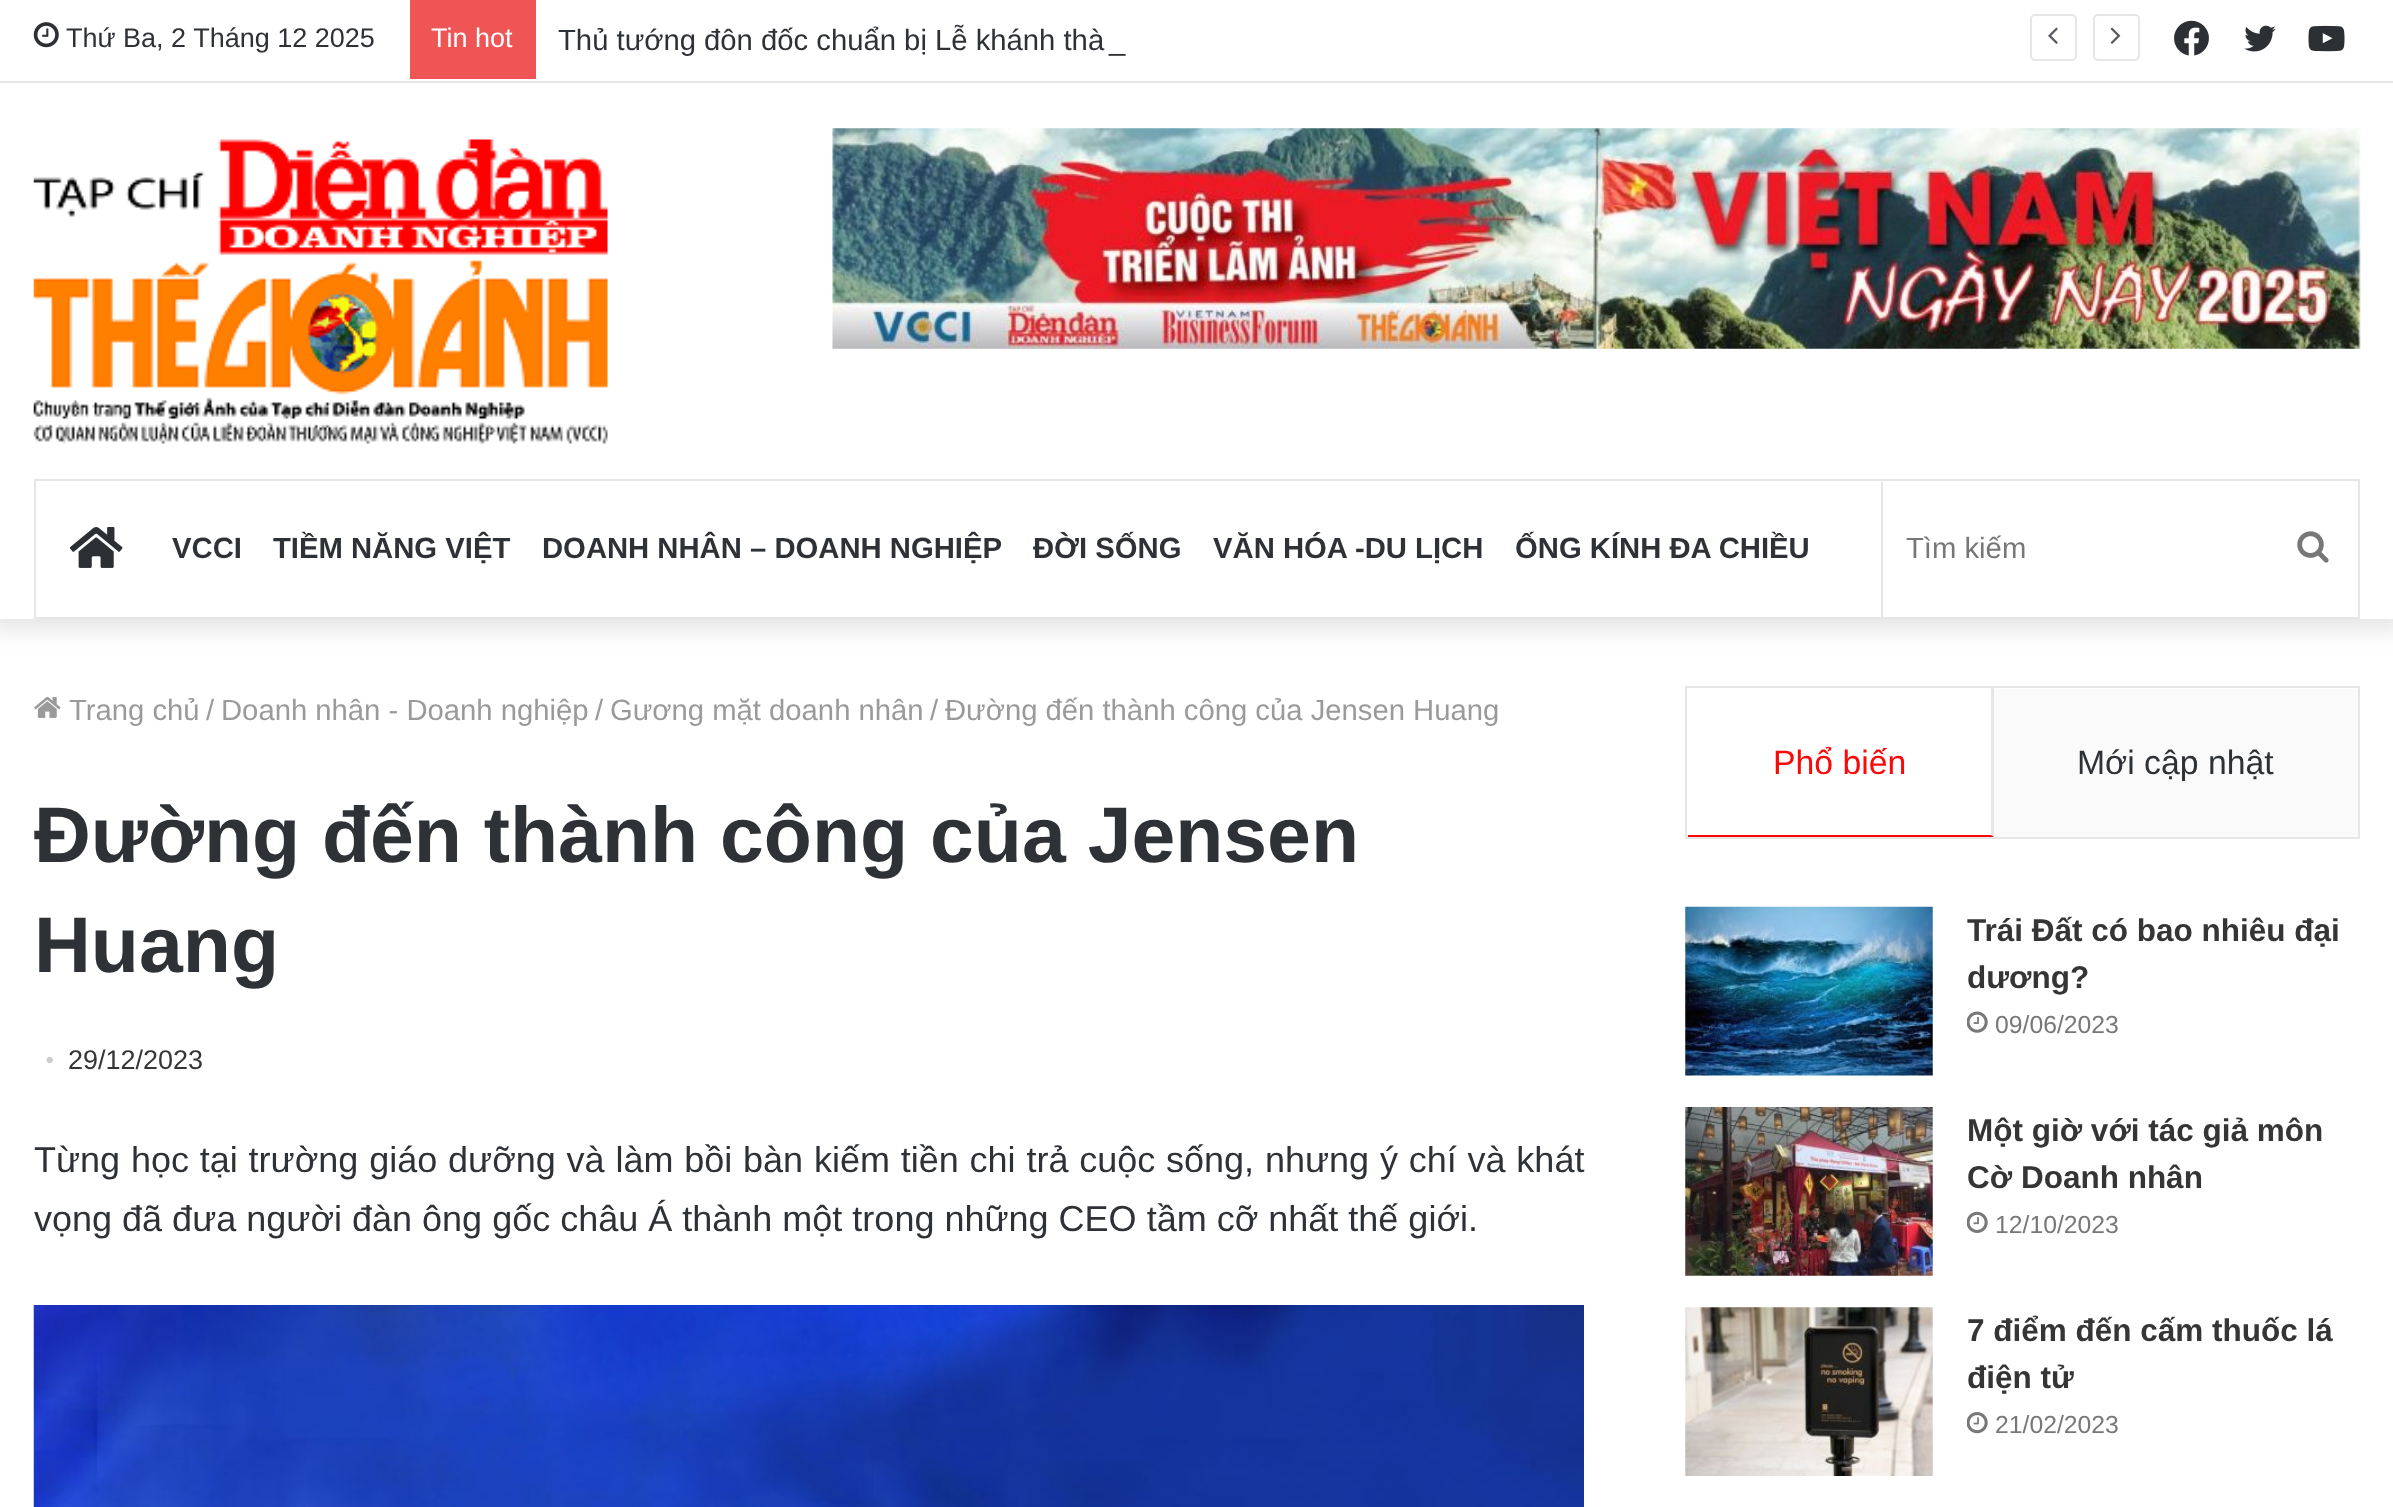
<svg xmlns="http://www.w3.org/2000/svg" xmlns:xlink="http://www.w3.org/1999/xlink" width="2393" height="1507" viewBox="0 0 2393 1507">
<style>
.cls-1{font:27px Liberation Sans;fill:#2e3136}
.cls-2{font:27px Liberation Sans;fill:#ffffff}
.cls-3{font:29.25px Liberation Sans;fill:#2e3136}
.cls-4{font:bold 29.25px Liberation Sans;fill:#2e3136}
.cls-5{font:29.25px Liberation Sans;fill:#777777}
.cls-6{font:29.25px Liberation Sans;fill:#9a9a9a}
.cls-7{font:bold 78.75px Liberation Sans;fill:#2e3136}
.cls-8{font:27px Liberation Serif;fill:#cdcdcd}
.cls-9{font:27px Liberation Sans;fill:#353535}
.cls-10{font:36px Liberation Sans;fill:#2e3136}
.cls-11{font:33.75px Liberation Sans;fill:#fc0806}
.cls-12{font:33.75px Liberation Sans;fill:#2e3136}
.cls-13{font:bold 31.5px Liberation Sans;fill:#353535}
.cls-14{font:24.75px Liberation Sans;fill:#777777}
</style>
<rect width="100%" height="100%" fill="#ffffff"/>
<rect fill="#000000" fill-opacity="0.1" filter="blur(11px)" x="-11" y="-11" width="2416" height="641"/>
<rect fill="#ffffff" x="0" y="0" width="2393" height="619"/>
<rect fill="#e6e6e6" x="0" y="81" width="2393" height="2"/>
<image xlink:href="image0.png" x="33" y="22" width="26" height="26"/>
<rect fill="#f05555" x="410" y="0" width="126" height="79"/>
<rect fill="none" stroke="#e6e6e6" stroke-width="2" x="2031" y="15" width="45" height="45" rx="4"/>
<image xlink:href="image1.png" x="2048" y="27" width="10" height="17"/>
<rect fill="none" stroke="#e6e6e6" stroke-width="2" x="2094" y="15" width="45" height="45" rx="4"/>
<image xlink:href="image2.png" x="2110" y="27" width="11" height="17"/>
<image xlink:href="image3.png" x="2174" y="20" width="35" height="36"/>
<image xlink:href="image4.png" x="2244" y="25" width="32" height="27"/>
<image xlink:href="image5.png" x="2308" y="25" width="37" height="27"/>
<image xlink:href="image6.png" x="33" y="139" width="575" height="305"/>
<image xlink:href="image7.png" x="832" y="128" width="1529" height="221"/>
<rect fill="none" stroke="#e6e6e6" stroke-width="2" x="35" y="480" width="2324" height="138"/>
<image xlink:href="image8.png" x="69" y="527" width="54" height="41"/>
<rect fill="#e6e6e6" x="1881" y="482" width="2" height="135"/>
<image xlink:href="image9.png" x="2297" y="531" width="32" height="32"/>
<image xlink:href="image10.png" x="34" y="697" width="27" height="21"/>
<image xlink:href="image11.png" x="33" y="1305" width="1551" height="202"/>
<rect fill="none" stroke="#e6e6e6" stroke-width="2" x="1686" y="687" width="673" height="151"/>
<path fill="#e6e6e6" d="M1994 688V837L1991 835V688Z"/>
<path fill="#fc0806" d="M1994 837H1688V835H1991Z"/>
<rect fill="#fafafa" x="1994" y="689" width="364" height="148"/>
<image xlink:href="image12.png" x="1685" y="906" width="248" height="170"/>
<image xlink:href="image13.png" x="1967" y="1011" width="21" height="22"/>
<image xlink:href="image14.png" x="1685" y="1107" width="248" height="169"/>
<image xlink:href="image15.png" x="1967" y="1211" width="21" height="22"/>
<image xlink:href="image16.png" x="1685" y="1307" width="248" height="169"/>
<image xlink:href="image17.png" x="1967" y="1412" width="21" height="22"/>
<text class="cls-1" x="66" y="47">Thứ Ba, 2 Tháng 12 2025</text>
<text class="cls-2" x="431" y="47">Tin hot</text>
<text class="cls-3" x="558" y="50">Thủ tướng đôn đốc chuẩn bị Lễ khánh thà</text>
<text class="cls-3" x="1109" y="50">_</text>
<text class="cls-4" x="172" y="558">VCCI</text>
<text class="cls-4" x="273" y="558">TIỀM NĂNG VIỆT</text>
<text class="cls-4" x="542" y="558">DOANH NHÂN – DOANH NGHIỆP</text>
<text class="cls-4" x="1033" y="558">ĐỜI SỐNG</text>
<text class="cls-4" x="1213" y="558">VĂN HÓA -DU LỊCH</text>
<text class="cls-4" x="1515" y="558">ỐNG KÍNH ĐA CHIỀU</text>
<text class="cls-5" x="1906" y="558">Tìm kiếm</text>
<text class="cls-6" x="69" y="720">Trang chủ</text>
<text class="cls-6" x="206" y="720">/</text>
<text class="cls-6" x="221" y="720">Doanh nhân - Doanh nghiệp</text>
<text class="cls-6" x="595" y="720">/</text>
<text class="cls-6" x="610" y="720">Gương mặt doanh nhân</text>
<text class="cls-6" x="930" y="720">/</text>
<text class="cls-6" x="945" y="720">Đường đến thành công của Jensen Huang</text>
<text class="cls-7"><tspan x="34" y="862">Đường đến thành công của Jensen</tspan><tspan x="34" y="972">Huang</tspan></text>
<text class="cls-8" x="45" y="1069">•</text>
<text class="cls-9" x="68" y="1069">29/12/2023</text>
<text class="cls-10"><tspan x="34" y="1172" word-spacing="0.8">Từng học tại trường giáo dưỡng và làm bồi bàn kiếm tiền chi trả cuộc sống, nhưng ý chí và khát</tspan><tspan x="34" y="1231">vọng đã đưa người đàn ông gốc châu Á thành một trong những CEO tầm cỡ nhất thế giới.</tspan></text>
<text class="cls-11" x="1773" y="774">Phổ biến</text>
<text class="cls-12" x="2077" y="774">Mới cập nhật</text>
<text class="cls-13"><tspan x="1967" y="941">Trái Đất có bao nhiêu đại</tspan><tspan x="1967" y="988">dương?</tspan></text>
<text class="cls-14" x="1995" y="1033">09/06/2023</text>
<text class="cls-13"><tspan x="1967" y="1141">Một giờ với tác giả môn</tspan><tspan x="1967" y="1188">Cờ Doanh nhân</tspan></text>
<text class="cls-14" x="1995" y="1233">12/10/2023</text>
<text class="cls-13"><tspan x="1967" y="1341">7 điểm đến cấm thuốc lá</tspan><tspan x="1967" y="1388">điện tử</tspan></text>
<text class="cls-14" x="1995" y="1433">21/02/2023</text>
</svg>
